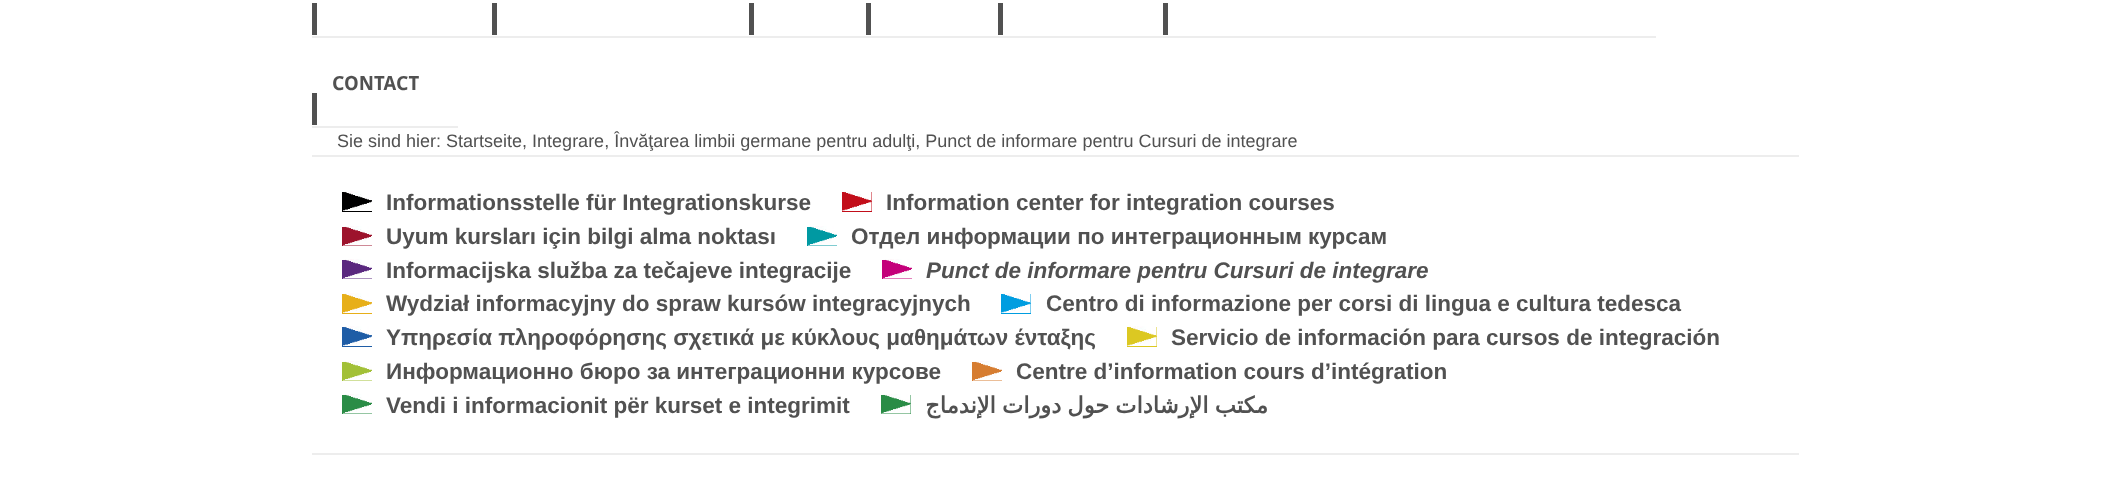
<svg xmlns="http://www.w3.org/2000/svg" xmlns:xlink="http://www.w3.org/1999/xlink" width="2108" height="486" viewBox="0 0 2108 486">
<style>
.cls-1{font:bold 19.5px Droid Sans;fill:#515151}
.cls-2{font:18px Liberation Sans;fill:#515151}
.cls-3{font:bold 22.5px Liberation Sans;fill:#515151}
.cls-4{font:italic bold 22.5px Liberation Sans;fill:#515151}
.cls-5{font:bold 22.5px DejaVu Sans;direction:rtl;fill:#515151}
</style>
<rect width="100%" height="100%" fill="#ffffff"/>
<rect fill="#ededed" x="312" y="36" width="1344" height="2"/>
<rect fill="#515151" x="312" y="3" width="5" height="32"/>
<rect fill="#515151" x="492" y="3" width="5" height="32"/>
<rect fill="#515151" x="749" y="3" width="5" height="32"/>
<rect fill="#515151" x="866" y="3" width="5" height="32"/>
<rect fill="#515151" x="998" y="3" width="5" height="32"/>
<rect fill="#515151" x="1163" y="3" width="5" height="32"/>
<rect fill="#ededed" x="312" y="126" width="146" height="2"/>
<rect fill="#515151" x="312" y="93" width="5" height="32"/>
<rect fill="#ededed" x="312" y="155" width="1487" height="2"/>
<rect fill="#ededed" x="312" y="453" width="1487" height="2"/>
<rect fill="#000000" x="342" y="192" width="30" height="20"/>
<image xlink:href="image0.png" x="343" y="191" width="29" height="20"/>
<rect fill="#c20e1a" x="842" y="192" width="30" height="20"/>
<image xlink:href="image1.png" x="842" y="191" width="30" height="20"/>
<rect fill="#9d132c" x="342" y="227" width="30" height="19"/>
<image xlink:href="image2.png" x="343" y="226" width="29" height="20"/>
<rect fill="#0099a2" x="807" y="227" width="30" height="19"/>
<image xlink:href="image3.png" x="808" y="226" width="29" height="20"/>
<rect fill="#5a287f" x="342" y="260" width="30" height="19"/>
<image xlink:href="image4.png" x="343" y="259" width="29" height="20"/>
<rect fill="#c4007a" x="882" y="260" width="30" height="19"/>
<image xlink:href="image5.png" x="883" y="259" width="29" height="20"/>
<rect fill="#e7af19" x="342" y="294" width="30" height="20"/>
<image xlink:href="image6.png" x="343" y="293" width="29" height="20"/>
<rect fill="#009de0" x="1001" y="294" width="30" height="20"/>
<image xlink:href="image7.png" x="1001" y="293" width="30" height="20"/>
<rect fill="#1f5da6" x="342" y="327" width="30" height="20"/>
<image xlink:href="image8.png" x="343" y="326" width="29" height="20"/>
<rect fill="#dcc822" x="1127" y="327" width="30" height="20"/>
<image xlink:href="image9.png" x="1127" y="326" width="30" height="20"/>
<rect fill="#a2c037" x="342" y="362" width="30" height="19"/>
<image xlink:href="image10.png" x="343" y="361" width="29" height="20"/>
<rect fill="#d67d31" x="972" y="362" width="30" height="19"/>
<image xlink:href="image11.png" x="973" y="361" width="29" height="20"/>
<rect fill="#2a8c46" x="342" y="395" width="30" height="19"/>
<image xlink:href="image12.png" x="343" y="394" width="29" height="20"/>
<rect fill="#2a8c46" x="881" y="395" width="30" height="19"/>
<image xlink:href="image13.png" x="881" y="394" width="30" height="20"/>
<text class="cls-1" x="332" y="90">CONTACT</text>
<text class="cls-2" x="337" y="147">Sie sind hier: Startseite, Integrare, Învăţarea limbii germane pentru adulţi, Punct de informare pentru Cursuri de integrare</text>
<text class="cls-3" x="386" y="210">Informationsstelle für Integrationskurse</text>
<text class="cls-3" x="886" y="210">Information center for integration courses</text>
<text class="cls-3" x="386" y="244">Uyum kursları için bilgi alma noktası</text>
<text class="cls-3" x="851" y="244">Отдел информации по интеграционным курсам</text>
<text class="cls-3" x="386" y="278">Informacijska služba za tečajeve integracije</text>
<text class="cls-4" x="926" y="278">Punct de informare pentru Cursuri de integrare</text>
<text class="cls-3" x="386" y="311">Wydział informacyjny do spraw kursów integracyjnych</text>
<text class="cls-3" x="1046" y="311">Centro di informazione per corsi di lingua e cultura tedesca</text>
<text class="cls-3" x="386" y="345">Υπηρεσία πληροφόρησης σχετικά με κύκλους μαθημάτων ένταξης</text>
<text class="cls-3" x="1171" y="345">Servicio de información para cursos de integración</text>
<text class="cls-3" x="386" y="379">Информационно бюро за интеграционни курсове</text>
<text class="cls-3" x="1016" y="379">Centre d’information cours d’intégration</text>
<text class="cls-3" x="386" y="413">Vendi i informacionit për kurset e integrimit</text>
<text class="cls-5" x="1268" y="413" word-spacing="-1">مكتب الإرشادات حول دورات الإندماج</text>
</svg>
